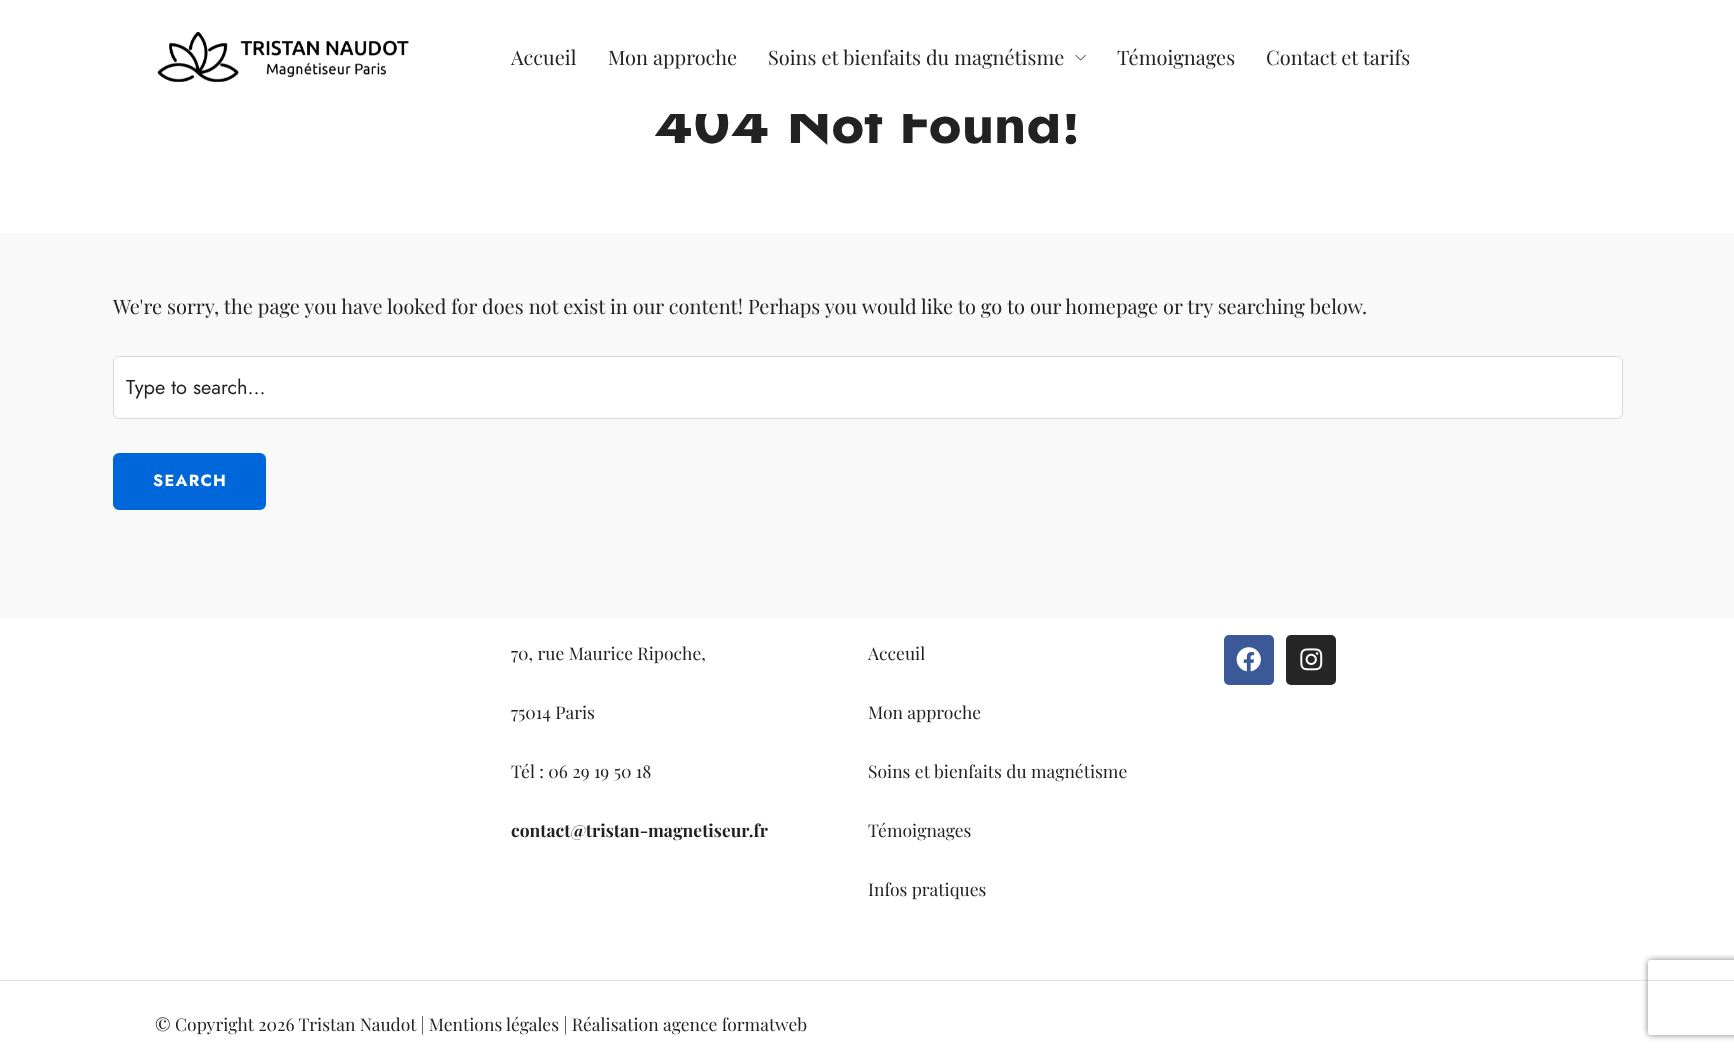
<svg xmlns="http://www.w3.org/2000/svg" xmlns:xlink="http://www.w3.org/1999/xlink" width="1734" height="1052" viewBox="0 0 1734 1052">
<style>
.cls-1{font:20px Playfair Display;fill:#222222}
.cls-2{font:bold 56.25px Jost;fill:#222222}
.cls-3{font:20px Jost;fill:#222222}
.cls-4{font:bold 16.25px Jost;letter-spacing:1.25px;fill:#ffffff}
.cls-5{font:17.5px Playfair Display;fill:#222222}
.cls-6{font:bold 17.5px Playfair Display;fill:#222222}
</style>
<defs>
<clipPath id="clip1"><path d="M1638 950H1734V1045H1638ZM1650.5 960H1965.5C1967 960 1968 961 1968 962.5V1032.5C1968 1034 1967 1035 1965.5 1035H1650.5C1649 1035 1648 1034 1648 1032.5V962.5C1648 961 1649 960 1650.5 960Z" clip-rule="evenodd"/></clipPath>
</defs>
<rect width="100%" height="100%" fill="#ffffff"/>
<rect fill="#f9f9f9" x="0" y="233" width="1734" height="386"/>
<image xlink:href="image0.png" x="157" y="31" width="252" height="52"/>
<image xlink:href="image1.png" x="1075" y="54" width="11" height="7"/>
<rect fill="#ffffff" stroke="#d8d8d8" x="113.5" y="356.5" width="1509" height="62" rx="5.5"/>
<rect fill="#0067da" stroke="#0067da" stroke-width="3" x="114.5" y="454.5" width="150" height="54" rx="4.5"/>
<rect fill="#3b5998" x="1224" y="635" width="50" height="50" rx="5"/>
<image xlink:href="image2.png" x="1236" y="647" width="25" height="25"/>
<rect fill="#262626" x="1286" y="635" width="50" height="50" rx="5"/>
<image xlink:href="image3.png" x="1300" y="648" width="23" height="23"/>
<rect fill="#e1e1e1" x="0" y="980" width="1734" height="1"/>
<g clip-path="url(#clip1)">
<rect fill="#808080" filter="blur(3px)" x="1648" y="960" width="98" height="75" rx="2.5"/>
</g>
<text class="cls-1" x="511" y="65">Accueil</text>
<text class="cls-1" x="608" y="65">Mon approche</text>
<text class="cls-1" x="768" y="65">Soins et bienfaits du magnétisme</text>
<text class="cls-1" x="1117" y="65">Témoignages</text>
<text class="cls-1" x="1266" y="65">Contact et tarifs</text>
<text class="cls-2" x="654" y="143">404 Not Found!</text>
<rect fill="#ffffff" x="670" y="99" width="407" height="15"/>
<text class="cls-1" x="113" y="314">We're sorry, the page you have looked for does not exist in our content! Perhaps you would like to go to our homepage or try searching below.</text>
<text class="cls-3" x="126" y="394">Type to search...</text>
<text class="cls-4" x="153" y="486">SEARCH</text>
<text class="cls-5" x="511" y="660">70, rue Maurice Ripoche,</text>
<text class="cls-5" x="511" y="719">75014 Paris</text>
<text class="cls-5" x="511" y="778">Tél : 06 29 19 50 18</text>
<text class="cls-6" x="511" y="837">contact@tristan-magnetiseur.fr</text>
<text class="cls-5" x="868" y="660">Acceuil</text>
<text class="cls-5" x="868" y="719">Mon approche</text>
<text class="cls-5" x="868" y="778">Soins et bienfaits du magnétisme</text>
<text class="cls-5" x="868" y="837">Témoignages</text>
<text class="cls-5" x="868" y="896">Infos pratiques</text>
<text class="cls-5" x="155" y="1031">© Copyright 2026 Tristan Naudot | Mentions légales | Réalisation agence formatweb</text>
</svg>
